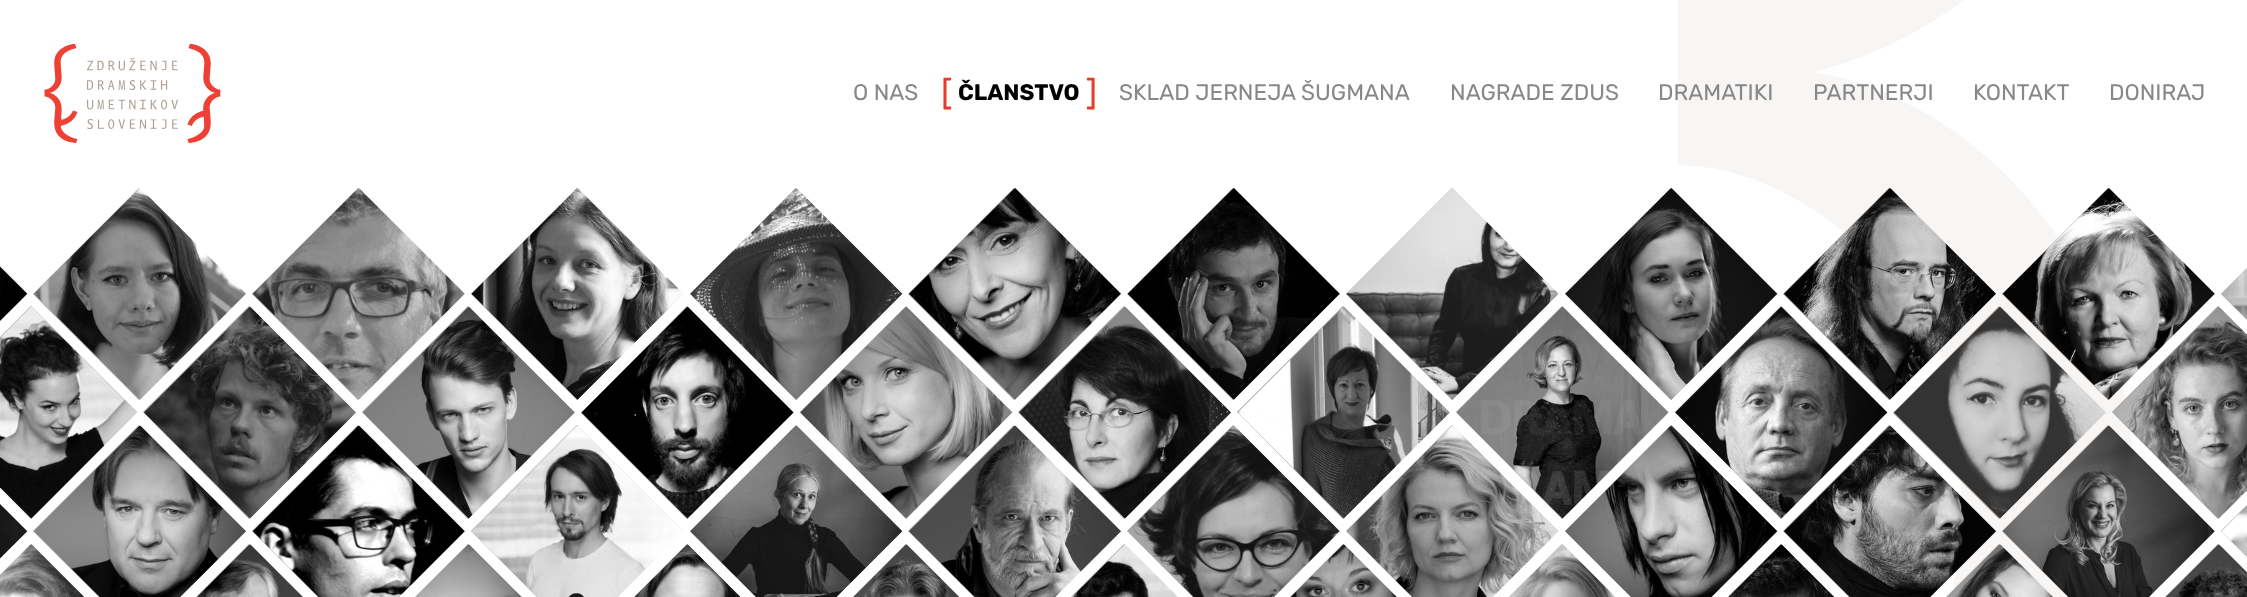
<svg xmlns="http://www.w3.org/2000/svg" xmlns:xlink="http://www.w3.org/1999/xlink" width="2247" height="597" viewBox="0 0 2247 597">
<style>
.cls-1{font:22.5px Rubik;fill:#888888}
.cls-2{font:34px Rubik;fill:#e63d2a}
.cls-3{font:bold 22.5px Rubik;fill:#000000}
</style>
<rect width="100%" height="100%" fill="#ffffff"/>
<image xlink:href="image0.png" x="1678" y="0" width="455" height="597"/>
<image xlink:href="image1.png" x="44" y="44" width="177" height="99"/>
<image xlink:href="image2.png" x="0" y="266" width="28" height="55"/>
<path fill="#aca095" d="M139 188L245 294L139 400L33 294Z"/>
<image xlink:href="image3.png" x="34" y="188" width="212" height="212"/>
<path fill="#aca095" d="M358 188L464 294L358 400L252 294Z"/>
<image xlink:href="image4.png" x="252" y="188" width="213" height="212"/>
<path fill="#aca095" d="M577 188L683 294L577 400L471 294Z"/>
<image xlink:href="image5.png" x="471" y="188" width="212" height="212"/>
<path fill="#aca095" d="M796 188L902 294L796 400L690 294Z"/>
<image xlink:href="image6.png" x="690" y="188" width="213" height="212"/>
<path fill="#aca095" d="M1014 188L1120 294L1014 400L908 294Z"/>
<image xlink:href="image7.png" x="909" y="188" width="212" height="212"/>
<path fill="#aca095" d="M1233 188L1339 294L1233 400L1127 294Z"/>
<image xlink:href="image8.png" x="1127" y="188" width="213" height="212"/>
<path fill="#aca095" d="M1452 188L1558 294L1452 400L1346 294Z"/>
<image xlink:href="image9.png" x="1346" y="188" width="213" height="212"/>
<path fill="#aca095" d="M1671 188L1777 294L1671 400L1565 294Z"/>
<image xlink:href="image10.png" x="1565" y="188" width="213" height="212"/>
<path fill="#aca095" d="M1889 188L1995 294L1889 400L1783 294Z"/>
<image xlink:href="image11.png" x="1784" y="188" width="212" height="212"/>
<path fill="#aca095" d="M2108 188L2214 294L2108 400L2002 294Z"/>
<image xlink:href="image12.png" x="2002" y="188" width="213" height="212"/>
<path fill="#aca095" d="M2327 188L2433 294L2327 400L2221 294Z"/>
<image xlink:href="image13.png" x="2221" y="269" width="26" height="50"/>
<path fill="#aca095" d="M31 306L137 412L31 519L-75 412Z"/>
<image xlink:href="image14.png" x="0" y="307" width="138" height="212"/>
<path fill="#aca095" d="M249 306L355 412L249 519L143 412Z"/>
<image xlink:href="image15.png" x="144" y="307" width="212" height="212"/>
<path fill="#aca095" d="M468 306L574 412L468 519L362 412Z"/>
<image xlink:href="image16.png" x="362" y="307" width="213" height="212"/>
<path fill="#aca095" d="M687 306L793 412L687 519L581 413Z"/>
<image xlink:href="image17.png" x="581" y="307" width="213" height="212"/>
<path fill="#aca095" d="M906 306L1012 412L906 519L800 412Z"/>
<image xlink:href="image18.png" x="800" y="307" width="213" height="212"/>
<path fill="#aca095" d="M1124 306L1230 412L1124 519L1018 412Z"/>
<image xlink:href="image19.png" x="1019" y="307" width="212" height="212"/>
<path fill="#aca095" d="M1343 306L1449 412L1343 519L1237 412Z"/>
<image xlink:href="image20.png" x="1237" y="307" width="213" height="212"/>
<path fill="#aca095" d="M1562 306L1668 412L1562 519L1456 412Z"/>
<image xlink:href="image21.png" x="1456" y="307" width="213" height="212"/>
<path fill="#aca095" d="M1781 306L1887 412L1781 519L1675 412Z"/>
<image xlink:href="image22.png" x="1675" y="307" width="213" height="212"/>
<path fill="#aca095" d="M1999 306L2105 412L1999 519L1893 413Z"/>
<image xlink:href="image23.png" x="1894" y="307" width="212" height="212"/>
<path fill="#aca095" d="M2218 306L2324 412L2218 519L2112 412Z"/>
<image xlink:href="image24.png" x="2113" y="307" width="134" height="212"/>
<image xlink:href="image25.png" x="0" y="504" width="28" height="55"/>
<path fill="#aca095" d="M139 425L245 531L139 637L33 531Z"/>
<image xlink:href="image26.png" x="34" y="425" width="212" height="172"/>
<path fill="#aca095" d="M358 425L464 531L358 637L252 531Z"/>
<image xlink:href="image27.png" x="252" y="425" width="213" height="172"/>
<path fill="#aca095" d="M577 425L683 531L577 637L471 531Z"/>
<image xlink:href="image28.png" x="472" y="425" width="211" height="172"/>
<path fill="#aca095" d="M796 425L902 531L796 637L690 531Z"/>
<image xlink:href="image29.png" x="690" y="425" width="213" height="172"/>
<path fill="#aca095" d="M1014 425L1120 531L1014 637L908 531Z"/>
<image xlink:href="image30.png" x="909" y="425" width="212" height="172"/>
<path fill="#aca095" d="M1233 425L1339 531L1233 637L1127 531Z"/>
<image xlink:href="image31.png" x="1127" y="425" width="213" height="172"/>
<path fill="#aca095" d="M1452 425L1558 531L1452 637L1346 531Z"/>
<image xlink:href="image32.png" x="1346" y="425" width="213" height="172"/>
<path fill="#aca095" d="M1671 425L1777 531L1671 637L1565 531Z"/>
<image xlink:href="image33.png" x="1565" y="425" width="213" height="172"/>
<path fill="#aca095" d="M1889 425L1995 531L1889 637L1783 531Z"/>
<image xlink:href="image34.png" x="1784" y="425" width="212" height="172"/>
<path fill="#aca095" d="M2108 425L2214 531L2108 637L2002 531Z"/>
<image xlink:href="image35.png" x="2002" y="425" width="213" height="172"/>
<path fill="#aca095" d="M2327 425L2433 531L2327 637L2221 531Z"/>
<image xlink:href="image36.png" x="2221" y="506" width="26" height="51"/>
<path fill="#aca095" d="M31 544L137 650L31 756L-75 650Z"/>
<image xlink:href="image37.png" x="0" y="544" width="85" height="53"/>
<path fill="#aca095" d="M249 544L355 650L249 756L143 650Z"/>
<image xlink:href="image38.png" x="197" y="544" width="106" height="53"/>
<path fill="#aca095" d="M468 544L574 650L468 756L362 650Z"/>
<image xlink:href="image39.png" x="416" y="544" width="106" height="53"/>
<path fill="#aca095" d="M687 544L793 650L687 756L581 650Z"/>
<image xlink:href="image40.png" x="634" y="544" width="107" height="53"/>
<path fill="#aca095" d="M906 544L1012 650L906 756L800 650Z"/>
<image xlink:href="image41.png" x="853" y="544" width="107" height="53"/>
<path fill="#aca095" d="M1124 544L1230 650L1124 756L1018 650Z"/>
<image xlink:href="image42.png" x="1072" y="544" width="106" height="53"/>
<path fill="#aca095" d="M1343 544L1449 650L1343 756L1237 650Z"/>
<image xlink:href="image43.png" x="1290" y="544" width="107" height="53"/>
<path fill="#aca095" d="M1562 544L1668 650L1562 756L1456 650Z"/>
<image xlink:href="image44.png" x="1510" y="544" width="106" height="53"/>
<path fill="#aca095" d="M1781 544L1887 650L1781 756L1675 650Z"/>
<image xlink:href="image45.png" x="1728" y="544" width="107" height="53"/>
<path fill="#aca095" d="M1999 544L2105 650L1999 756L1893 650Z"/>
<image xlink:href="image46.png" x="1947" y="544" width="106" height="53"/>
<path fill="#aca095" d="M2218 544L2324 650L2218 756L2112 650Z"/>
<image xlink:href="image47.png" x="2165" y="544" width="82" height="53"/>
<text class="cls-1" x="853" y="100">O NAS</text>
<text class="cls-2" x="941" y="104">[</text>
<text class="cls-3" x="958" y="100">ČLANSTVO</text>
<text class="cls-2" x="1086" y="104">]</text>
<text class="cls-1" x="1119" y="100">SKLAD JERNEJA ŠUGMANA</text>
<text class="cls-1" x="1450" y="100">NAGRADE ZDUS</text>
<text class="cls-1" x="1658" y="100">DRAMATIKI</text>
<text class="cls-1" x="1813" y="100">PARTNERJI</text>
<text class="cls-1" x="1973" y="100">KONTAKT</text>
<text class="cls-1" x="2109" y="100">DONIRAJ</text>
</svg>
